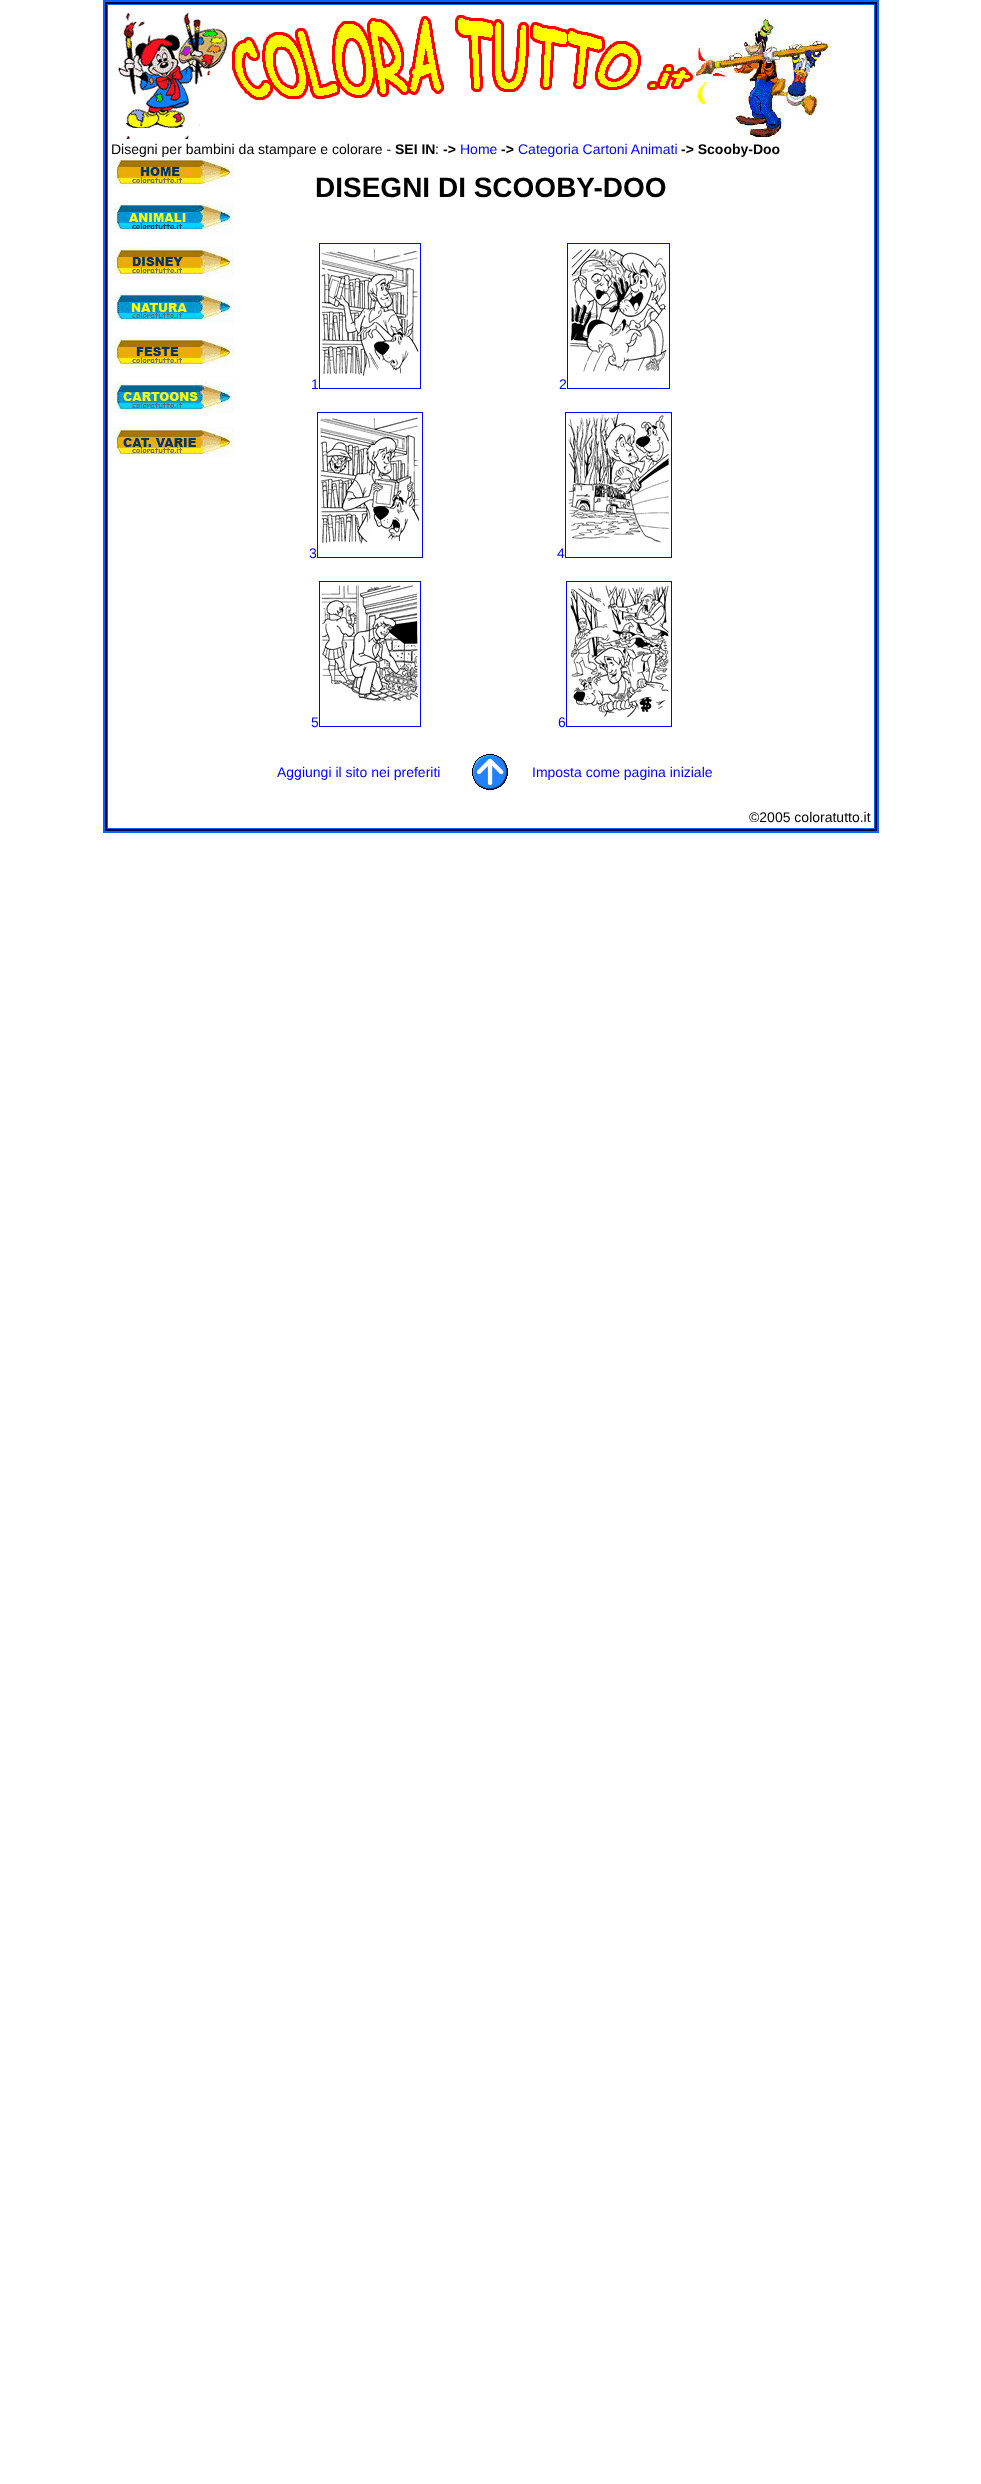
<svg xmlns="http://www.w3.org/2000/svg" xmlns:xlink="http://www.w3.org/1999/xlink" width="981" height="2484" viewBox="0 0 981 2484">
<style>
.cls-1{font:14px Liberation Sans;fill:#000000}
.cls-2{font:bold 14px Liberation Sans;fill:#000000}
.cls-3{font:14px Liberation Sans;fill:#0000ff}
.cls-4{font:bold 28px Liberation Sans;fill:#000000}
</style>
<rect width="100%" height="100%" fill="#ffffff"/>
<rect fill="#000033" stroke="#0066ff" stroke-width="2" x="104" y="1" width="774" height="831"/>
<rect fill="#ffffff" stroke="#0066ff" x="107.5" y="4.5" width="767" height="824"/>
<image xlink:href="image0.png" x="118" y="12" width="110" height="127"/>
<image xlink:href="image1.png" x="232" y="15" width="461" height="85"/>
<image xlink:href="image2.png" x="696" y="18" width="136" height="119"/>
<image xlink:href="image3.png" x="114" y="157" width="120" height="31"/>
<image xlink:href="image4.png" x="114" y="202" width="120" height="31"/>
<image xlink:href="image5.png" x="114" y="247" width="120" height="31"/>
<image xlink:href="image6.png" x="114" y="292" width="120" height="31"/>
<image xlink:href="image7.png" x="114" y="337" width="120" height="31"/>
<image xlink:href="image8.png" x="114" y="382" width="120" height="31"/>
<image xlink:href="image9.png" x="114" y="427" width="120" height="31"/>
<rect fill="none" stroke="#0000ff" x="319.5" y="243.5" width="101" height="145"/>
<image xlink:href="image10.png" x="321" y="244" width="98" height="144"/>
<rect fill="none" stroke="#0000ff" x="567.5" y="243.5" width="102" height="145"/>
<image xlink:href="image11.png" x="570" y="249" width="97" height="139"/>
<rect fill="none" stroke="#0000ff" x="317.5" y="412.5" width="105" height="145"/>
<image xlink:href="image12.png" x="320" y="417" width="100" height="127"/>
<rect fill="none" stroke="#0000ff" x="565.5" y="412.5" width="106" height="145"/>
<image xlink:href="image13.png" x="568" y="413" width="101" height="136"/>
<rect fill="none" stroke="#0000ff" x="319.5" y="581.5" width="101" height="145"/>
<image xlink:href="image14.png" x="321" y="585" width="97" height="117"/>
<rect fill="none" stroke="#0000ff" x="566.5" y="581.5" width="105" height="145"/>
<image xlink:href="image15.png" x="570" y="585" width="99" height="141"/>
<image xlink:href="image16.png" x="472" y="754" width="36" height="36"/>
<text class="cls-1" x="111" y="154">Disegni per bambini da stampare e colorare -</text>
<text class="cls-2" x="395" y="154">SEI IN</text>
<text class="cls-1" x="435" y="154">:</text>
<text class="cls-2" x="443" y="154">-&gt;</text>
<text class="cls-3" x="460" y="154">Home</text>
<text class="cls-2" x="501" y="154">-&gt;</text>
<text class="cls-3" x="518" y="154">Categoria Cartoni Animati</text>
<text class="cls-2" x="681" y="154">-&gt; Scooby-Doo</text>
<text class="cls-4" x="315" y="197">DISEGNI DI SCOOBY-DOO</text>
<text class="cls-3" x="311" y="389">1</text>
<text class="cls-3" x="559" y="389">2</text>
<text class="cls-3" x="309" y="558">3</text>
<text class="cls-3" x="557" y="558">4</text>
<text class="cls-3" x="311" y="727">5</text>
<text class="cls-3" x="558" y="727">6</text>
<text class="cls-3" x="277" y="777">Aggiungi il sito nei preferiti</text>
<text class="cls-3" x="532" y="777">Imposta come pagina iniziale</text>
<text class="cls-1" x="749" y="822">©2005 coloratutto.it</text>
</svg>
